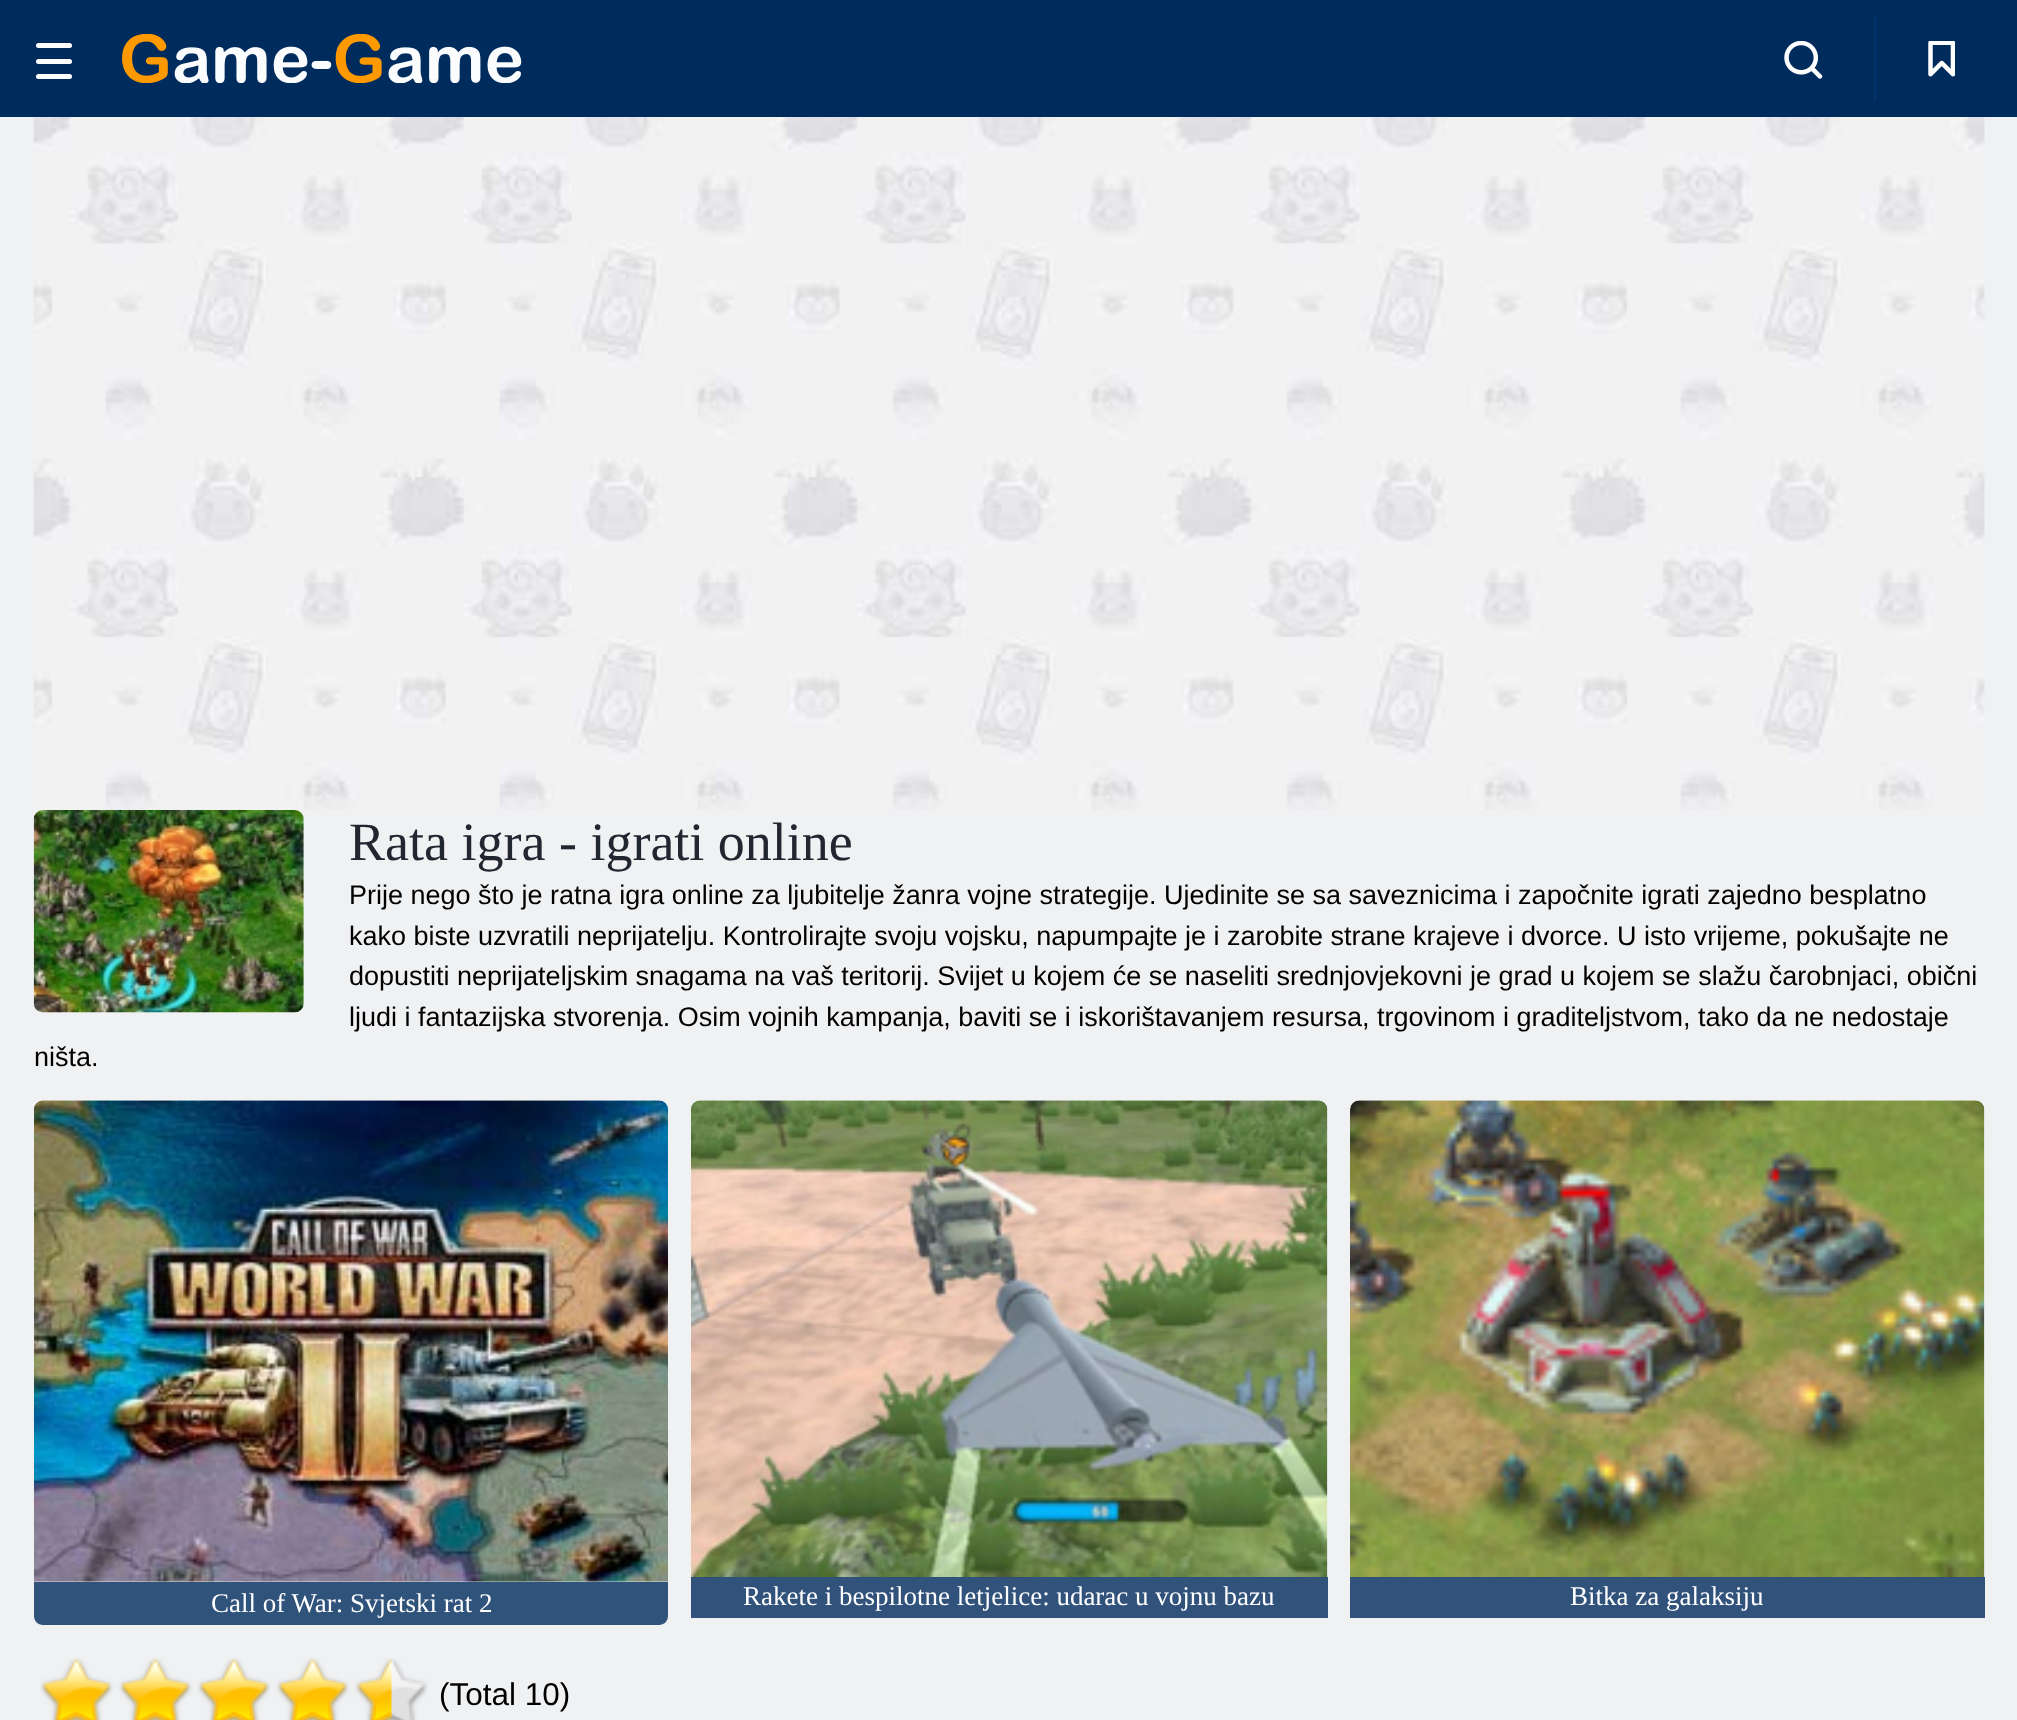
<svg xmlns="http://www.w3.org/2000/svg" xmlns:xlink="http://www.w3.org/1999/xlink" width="2017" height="1720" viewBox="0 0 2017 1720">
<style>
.cls-1{font:54px Liberation Serif;fill:#222630}
.cls-2{font:27px Liberation Sans;fill:#000000}
.cls-3{font:27px Liberation Serif;fill:#ffffff}
.cls-4{font:31.5px Liberation Sans;fill:#000000}
</style>
<rect width="100%" height="100%" fill="#f0f1f3"/>
<rect fill="#002b5d" x="0" y="0" width="2017" height="117"/>
<rect fill="#ffffff" x="36" y="74" width="36" height="5" rx="2.5"/>
<rect fill="#ffffff" x="36" y="43" width="36" height="5" rx="2.5"/>
<rect fill="#ffffff" x="36" y="59" width="36" height="5" rx="2.5"/>
<image xlink:href="image0.png" x="122" y="34" width="400" height="49"/>
<image xlink:href="image1.png" x="1784" y="41" width="39" height="38"/>
<rect fill="#00346e" x="1874" y="16" width="2" height="85"/>
<image xlink:href="image2.png" x="1928" y="41" width="27" height="36"/>
<image xlink:href="image3.png" x="33" y="117" width="1952" height="693"/>
<image xlink:href="image4.png" x="33" y="810" width="271" height="203"/>
<image xlink:href="image5.png" x="34" y="1100" width="634" height="482"/>
<path fill="#30537b" d="M34 1582H668V1616C668 1621 664 1625 659 1625H43C38 1625 34 1621 34 1616Z"/>
<image xlink:href="image6.png" x="691" y="1100" width="637" height="478"/>
<rect fill="#002b5d" fill-opacity="0.8" x="691" y="1577" width="637" height="41"/>
<image xlink:href="image7.png" x="1350" y="1100" width="635" height="478"/>
<rect fill="#002b5d" fill-opacity="0.8" x="1350" y="1577" width="635" height="41"/>
<image xlink:href="image8.png" x="40" y="1658" width="388" height="62"/>
<image xlink:href="image9.png" x="42" y="1658" width="350" height="62"/>
<text class="cls-1" x="349" y="860">Rata igra - igrati online</text>
<text class="cls-2"><tspan x="349" y="904">Prije nego što je ratna igra online za ljubitelje žanra vojne strategije. Ujedinite se sa saveznicima i započnite igrati zajedno besplatno</tspan><tspan x="349" y="945">kako biste uzvratili neprijatelju. Kontrolirajte svoju vojsku, napumpajte je i zarobite strane krajeve i dvorce. U isto vrijeme, pokušajte ne</tspan><tspan x="349" y="985">dopustiti neprijateljskim snagama na vaš teritorij. Svijet u kojem će se naseliti srednjovjekovni je grad u kojem se slažu čarobnjaci, obični</tspan><tspan x="349" y="1026">ljudi i fantazijska stvorenja. Osim vojnih kampanja, baviti se i iskorištavanjem resursa, trgovinom i graditeljstvom, tako da ne nedostaje</tspan></text>
<text class="cls-2" x="34" y="1066">ništa.</text>
<text class="cls-3" x="211" y="1612">Call of War: Svjetski rat 2</text>
<text class="cls-3" x="743" y="1605">Rakete i bespilotne letjelice: udarac u vojnu bazu</text>
<text class="cls-3" x="1570" y="1605">Bitka za galaksiju</text>
<text class="cls-4" x="439" y="1705">(Total 10)</text>
</svg>
